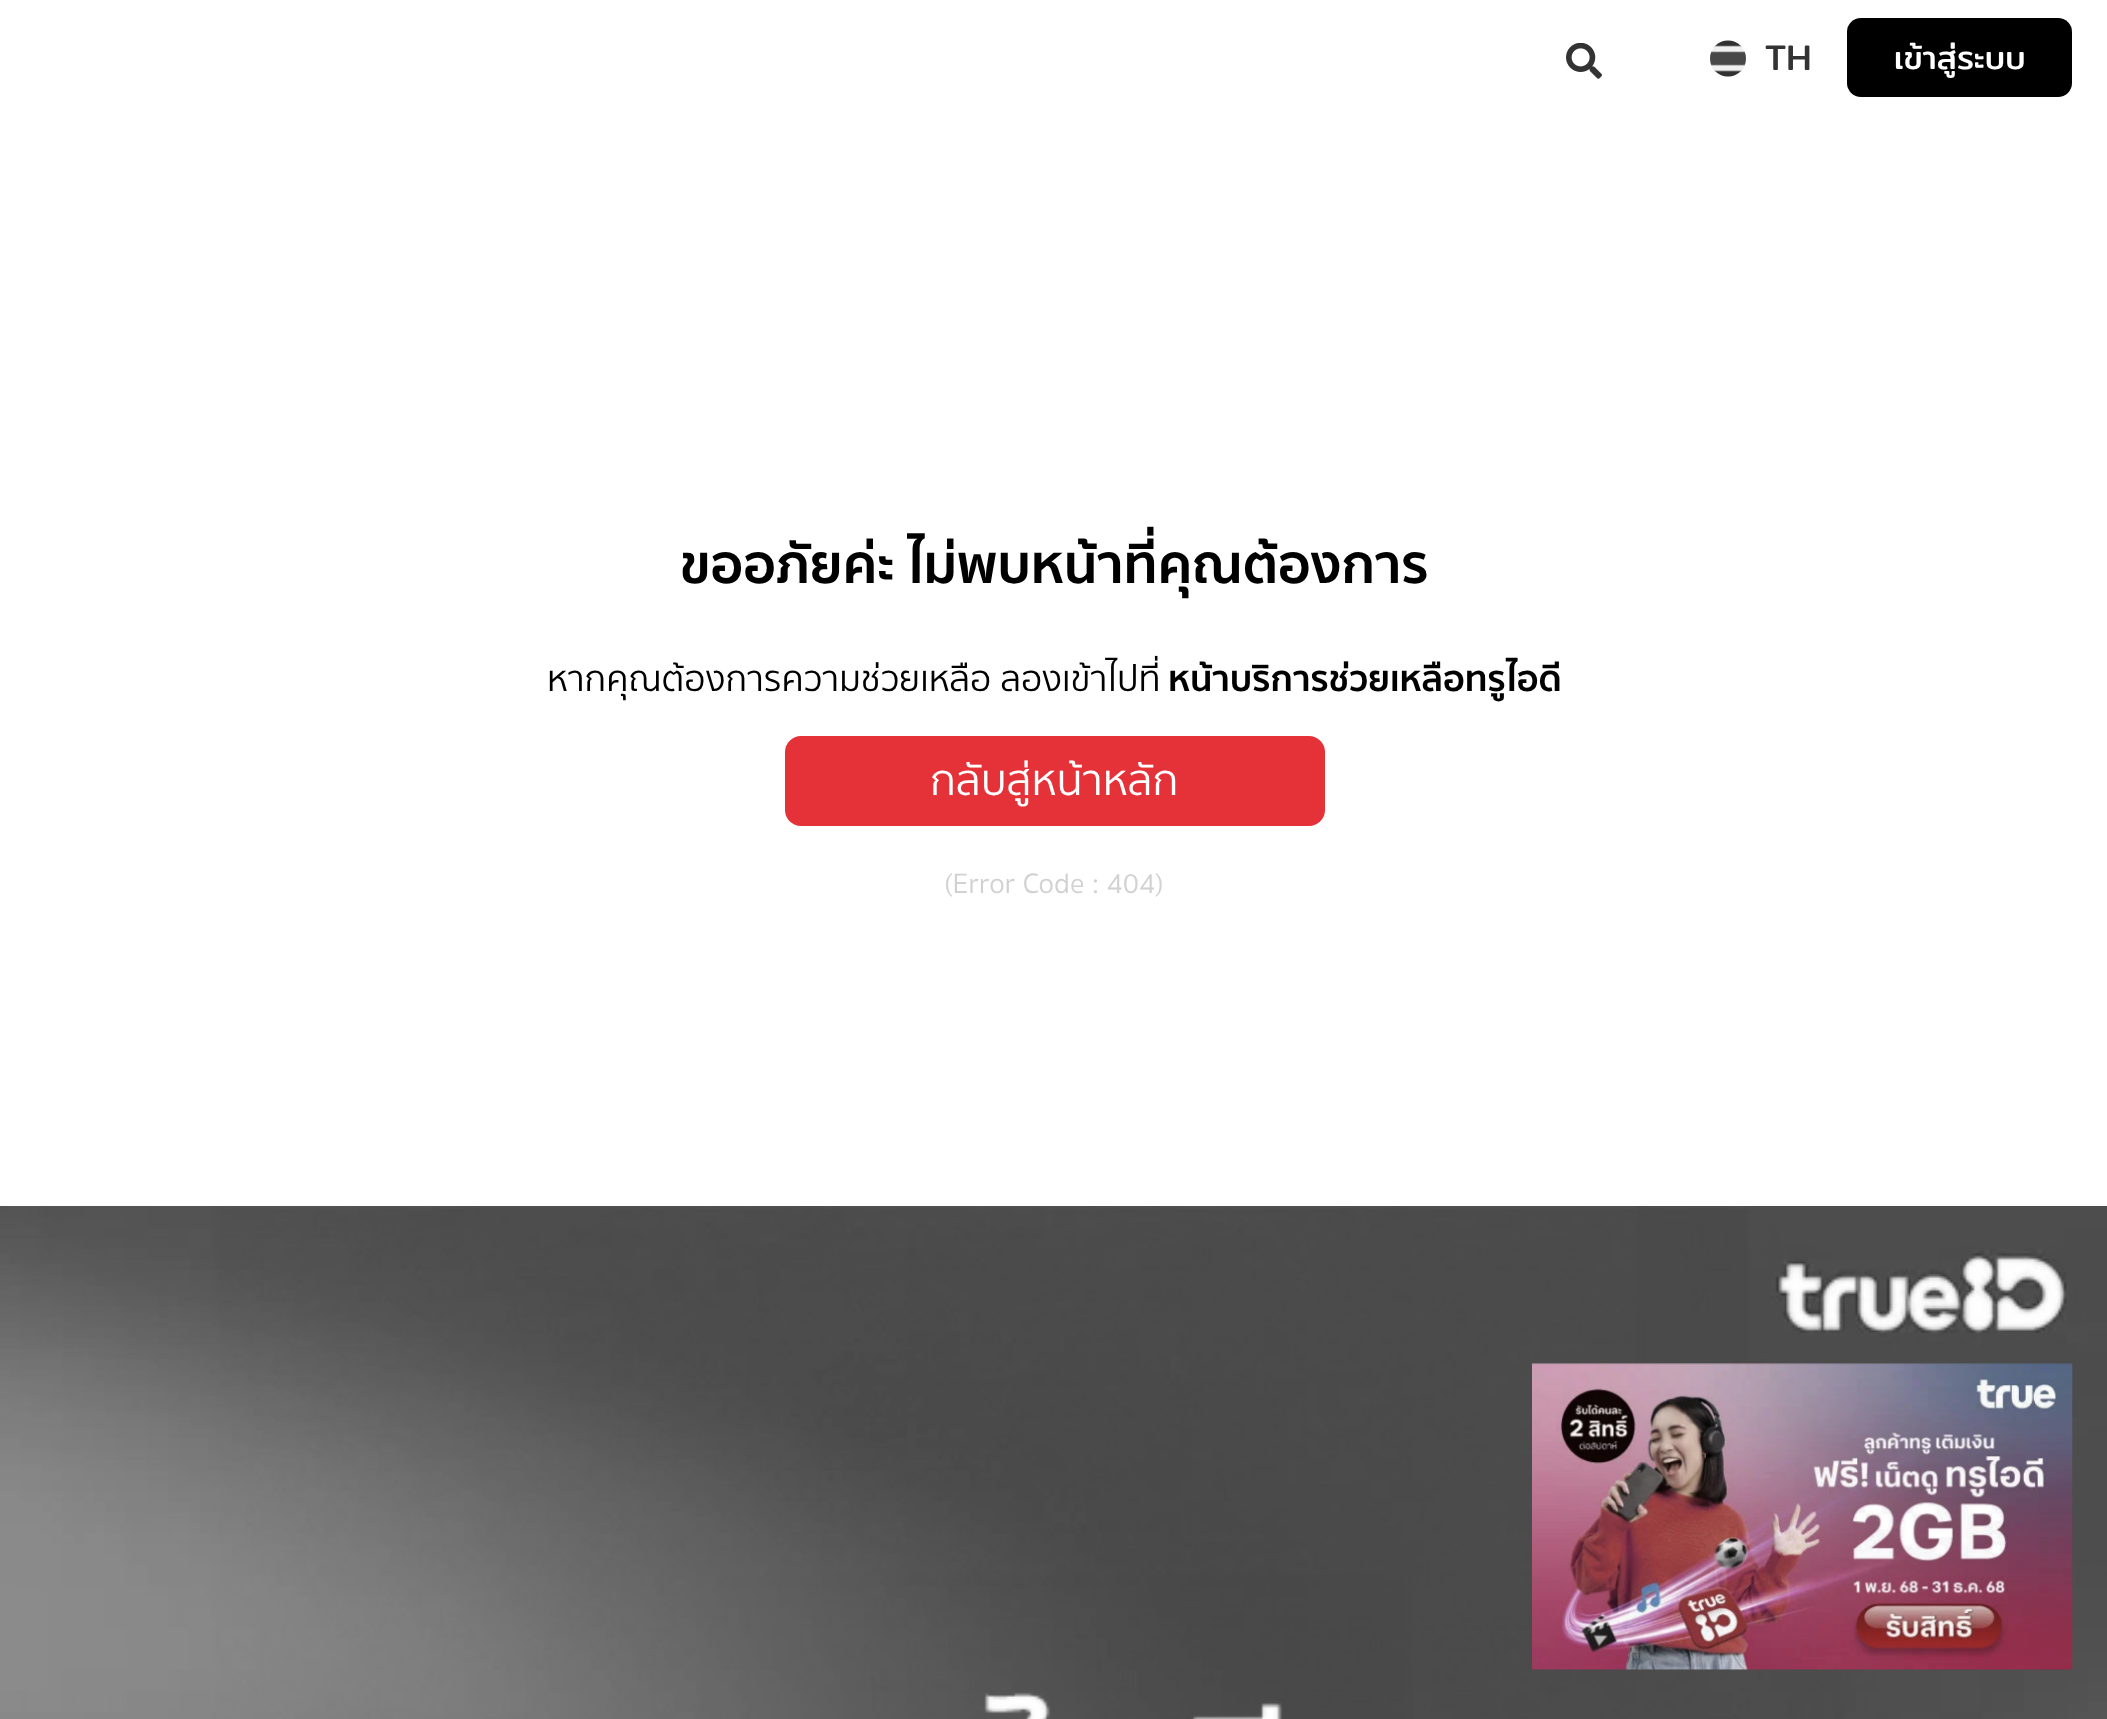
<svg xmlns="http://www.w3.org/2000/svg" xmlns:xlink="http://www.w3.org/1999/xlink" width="2107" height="1719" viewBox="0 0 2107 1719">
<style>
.cls-1{font:36px Mitr;fill:#333333}
.cls-2{font:32.5px Mitr;fill:#ffffff}
.cls-3{font:bold 54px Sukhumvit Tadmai;fill:#000000}
.cls-4{font:36px Sukhumvit Tadmai;fill:#000000}
.cls-5{font:bold 36px Sukhumvit Tadmai;fill:#000000}
.cls-6{font:43.25px Sukhumvit Tadmai;fill:#ffffff}
.cls-7{font:28.75px Sukhumvit Tadmai;fill:#d1d1d1}
</style>
<rect width="100%" height="100%" fill="#ffffff"/>
<image xlink:href="image0.png" x="1566" y="43" width="36" height="36"/>
<circle fill="#efefef" cx="1728" cy="59" r="18"/>
<image xlink:href="image1.png" x="1710" y="40" width="36" height="37"/>
<rect fill="#000000" x="1847" y="18" width="225" height="79" rx="14"/>
<rect fill="#e53138" x="785" y="736" width="540" height="90" rx="16"/>
<image xlink:href="image2.png" x="0" y="1206" width="2107" height="513"/>
<image xlink:href="image3.png" x="1532" y="1363" width="541" height="307"/>
<text class="cls-1" x="1765" y="70">TH</text>
<text class="cls-2" x="1894" y="69">เข้าสู่ระบบ</text>
<text class="cls-3" x="680" y="583">ขออภัยค่ะ ไม่พบหน้าที่คุณต้องการ</text>
<text class="cls-4" x="547" y="691">หากคุณต้องการความช่วยเหลือ ลองเข้าไปที่</text>
<text class="cls-5" x="1168" y="691">หน้าบริการช่วยเหลือทรูไอดี</text>
<text class="cls-6" x="930" y="795">กลับสู่หน้าหลัก</text>
<text class="cls-7" x="944" y="893">(Error Code : 404)</text>
</svg>
